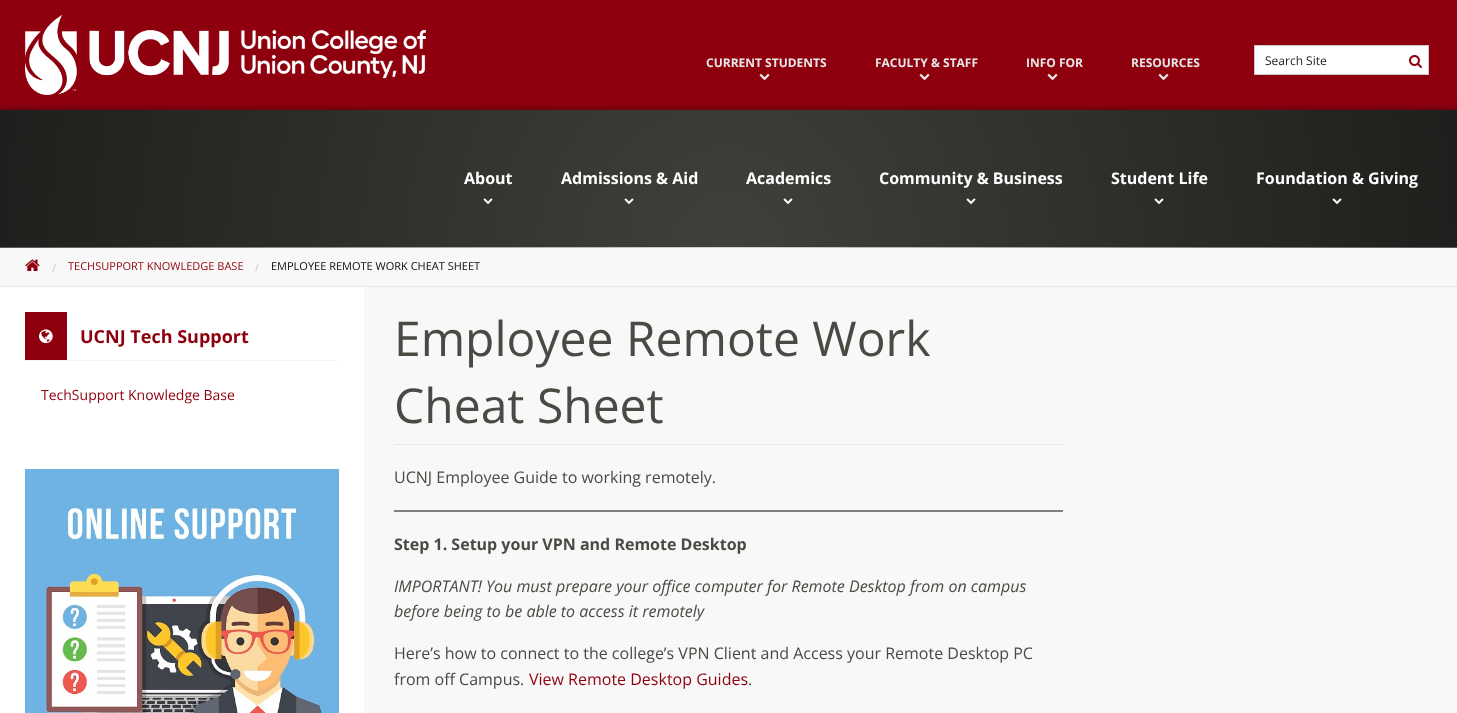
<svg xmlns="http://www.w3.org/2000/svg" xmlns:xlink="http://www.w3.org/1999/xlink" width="1457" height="713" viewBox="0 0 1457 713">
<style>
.cls-1{font:bold 12px Open Sans;fill:#e8e8e8}
.cls-2{font:12px Open Sans;fill:#232323}
.cls-3{font:bold 16px Open Sans;fill:#ffffff}
.cls-4{font:11px Open Sans;fill:#cacaca}
.cls-5{font:11px Open Sans;fill:#8f000e}
.cls-6{font:11px Open Sans;fill:#0a0a0a}
.cls-7{font:bold 18px Open Sans;fill:#8f000e}
.cls-8{font:14px Open Sans;fill:#8f000e}
.cls-9{font:48px Open Sans;fill:#4b4943}
.cls-10{font:16px Open Sans;fill:#4b4943}
.cls-11{font:bold 16px Open Sans;fill:#4b4943}
.cls-12{font:italic 16px Open Sans;fill:#4b4943}
.cls-13{font:16px Open Sans;fill:#8f000e}
</style>
<defs>
<radialGradient id="g1" gradientUnits="userSpaceOnUse" cx="729" cy="248" r="911"><stop offset="0" stop-color="#0a0a0a" stop-opacity="0.15"/><stop offset="1" stop-color="#0a0a0a" stop-opacity="0.8"/></radialGradient>
</defs>
<rect width="100%" height="100%" fill="#8f000e"/>
<image xlink:href="image0.png" x="25" y="15" width="401" height="80"/>
<image xlink:href="image1.png" x="759" y="73" width="11" height="8"/>
<image xlink:href="image1.png" x="919" y="73" width="11" height="8"/>
<image xlink:href="image1.png" x="1047" y="73" width="11" height="8"/>
<image xlink:href="image1.png" x="1158" y="73" width="11" height="8"/>
<rect fill="#ffffff" stroke="#cacaca" x="1254.5" y="45.5" width="174" height="29"/>
<image xlink:href="image2.png" x="1409" y="55" width="13" height="13"/>
<rect fill="#0a0a0a" fill-opacity="0.5" filter="blur(5px)" x="0" y="110" width="1457" height="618"/>
<rect fill="#4b4943" x="0" y="110" width="1457" height="137"/>
<rect fill="#f8f8f8" x="0" y="247" width="1457" height="39"/>
<rect fill="url(#g1)" x="0" y="110" width="1457" height="138"/>
<image xlink:href="image3.png" x="483" y="198" width="10" height="7"/>
<image xlink:href="image4.png" x="624" y="198" width="10" height="7"/>
<image xlink:href="image5.png" x="783" y="198" width="10" height="7"/>
<image xlink:href="image6.png" x="966" y="198" width="10" height="7"/>
<image xlink:href="image7.png" x="1154" y="198" width="10" height="7"/>
<image xlink:href="image8.png" x="1332" y="198" width="10" height="7"/>
<rect fill="#e8e8e8" x="0" y="286" width="1457" height="1"/>
<image xlink:href="image9.png" x="25" y="259" width="15" height="12"/>
<rect fill="#ffffff" x="0" y="287" width="364" height="426"/>
<rect fill="#8f000e" x="25" y="312" width="42" height="48"/>
<image xlink:href="image10.png" x="39" y="329" width="14" height="15"/>
<path fill="none" stroke="#e8e8e8" stroke-dasharray="1 1" d="M25 360.5H339"/>
<image xlink:href="image11.png" x="25" y="469" width="314" height="244"/>
<rect fill="#f8f8f8" x="364" y="287" width="1093" height="426"/>
<rect fill="#e8e8e8" x="394" y="444" width="669" height="1"/>
<rect fill="#808080" x="394" y="510" width="669" height="2"/>
<text class="cls-1" x="706" y="67">CURRENT STUDENTS</text>
<text class="cls-1" x="875" y="67">FACULTY &amp; STAFF</text>
<text class="cls-1" x="1026" y="67">INFO FOR</text>
<text class="cls-1" x="1131" y="67">RESOURCES</text>
<text class="cls-2" x="1265" y="65">Search Site</text>
<text class="cls-3" x="464" y="184">About</text>
<text class="cls-3" x="561" y="184">Admissions &amp; Aid</text>
<text class="cls-3" x="746" y="184">Academics</text>
<text class="cls-3" x="879" y="184">Community &amp; Business</text>
<text class="cls-3" x="1111" y="184">Student Life</text>
<text class="cls-3" x="1256" y="184">Foundation &amp; Giving</text>
<text class="cls-4" x="52" y="272">/</text>
<text class="cls-5" x="68" y="270">TECHSUPPORT KNOWLEDGE BASE</text>
<text class="cls-4" x="255" y="271">/</text>
<text class="cls-6" x="271" y="270">EMPLOYEE REMOTE WORK CHEAT SHEET</text>
<text class="cls-7" x="80" y="343">UCNJ Tech Support</text>
<text class="cls-8" x="41" y="400">TechSupport Knowledge Base</text>
<text class="cls-9"><tspan x="394" y="356">Employee Remote Work</tspan><tspan x="394" y="423">Cheat Sheet</tspan></text>
<text class="cls-10" x="394" y="483">UCNJ Employee Guide to working remotely.</text>
<text class="cls-11" x="394" y="550">Step 1. Setup your VPN and Remote Desktop</text>
<text class="cls-12"><tspan x="394" y="592">IMPORTANT! You must prepare your office computer for Remote Desktop from on campus</tspan><tspan x="394" y="617">before being to be able to access it remotely</tspan></text>
<text class="cls-10"><tspan x="394" y="659">Here’s how to connect to the college’s VPN Client and Access your Remote Desktop PC</tspan><tspan x="394" y="685">from off Campus.</tspan></text>
<text class="cls-13" x="529" y="685">View Remote Desktop Guides</text>
<text class="cls-10" x="748" y="685">.</text>
</svg>
